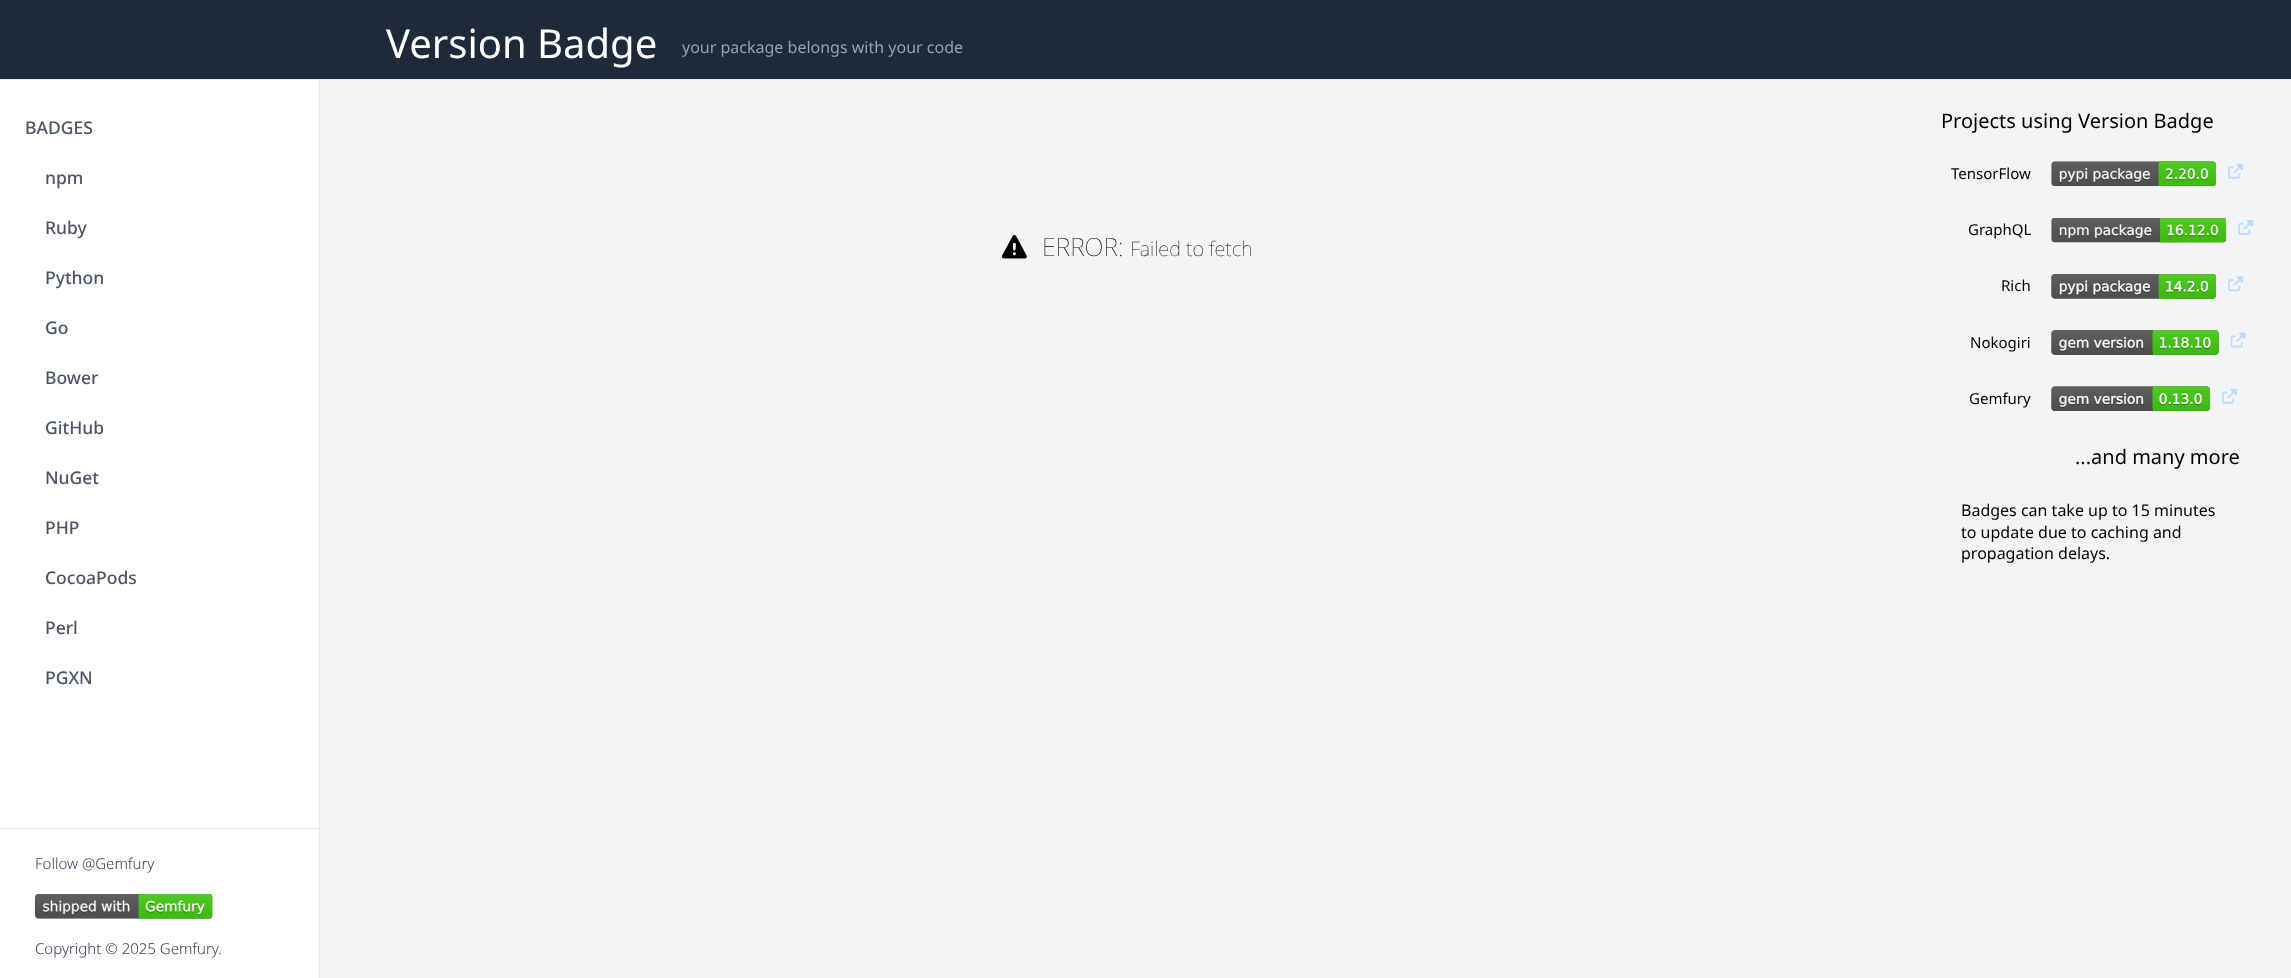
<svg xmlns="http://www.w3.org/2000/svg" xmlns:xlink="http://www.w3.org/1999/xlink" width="2291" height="978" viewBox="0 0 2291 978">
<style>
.cls-1{font:40px Noto Sans;fill:#ffffff}
.cls-2{font:16px Noto Sans;fill:#99a1af}
.cls-3{font:500 17.5px Noto Sans;fill:#4a5565}
.cls-4{font:300 15px Noto Sans;fill:#364153}
.cls-5{font:100 25px Noto Sans;fill:#000000}
.cls-6{font:100 20px Noto Sans;fill:#000000}
.cls-7{font:20px Noto Sans;fill:#000000}
.cls-8{font:15px Noto Sans;fill:#000000}
.cls-9{font:16px Noto Sans;fill:#000000}
</style>
<rect width="100%" height="100%" fill="#f3f4f6"/>
<rect fill="#e5e7eb" x="0" y="79" width="2291" height="1"/>
<rect fill="#1e2939" x="0" y="0" width="2291" height="79"/>
<rect fill="#ffffff" x="0" y="80" width="319" height="898"/>
<rect fill="#e5e7eb" x="319" y="80" width="1" height="898"/>
<rect fill="#e5e7eb" x="0" y="828" width="319" height="1"/>
<image xlink:href="image0.png" x="35" y="894" width="178" height="25"/>
<image xlink:href="image1.png" x="1001" y="235" width="26" height="24"/>
<image xlink:href="image2.png" x="2051" y="161" width="165" height="25"/>
<image xlink:href="image3.png" x="2228" y="163" width="16" height="16"/>
<image xlink:href="image4.png" x="2051" y="218" width="175" height="25"/>
<image xlink:href="image5.png" x="2238" y="220" width="16" height="15"/>
<image xlink:href="image6.png" x="2051" y="274" width="165" height="25"/>
<image xlink:href="image7.png" x="2228" y="276" width="16" height="16"/>
<image xlink:href="image8.png" x="2051" y="330" width="168" height="25"/>
<image xlink:href="image9.png" x="2230" y="332" width="16" height="16"/>
<image xlink:href="image10.png" x="2051" y="386" width="159" height="25"/>
<image xlink:href="image11.png" x="2221" y="388" width="16" height="16"/>
<text class="cls-1" x="386" y="58">Version Badge</text>
<text class="cls-2" x="682" y="53">your package belongs with your code</text>
<text class="cls-3" x="25" y="134">BADGES</text>
<text class="cls-3" x="45" y="184">npm</text>
<text class="cls-3" x="45" y="234">Ruby</text>
<text class="cls-3" x="45" y="284">Python</text>
<text class="cls-3" x="45" y="334">Go</text>
<text class="cls-3" x="45" y="384">Bower</text>
<text class="cls-3" x="45" y="434">GitHub</text>
<text class="cls-3" x="45" y="484">NuGet</text>
<text class="cls-3" x="45" y="534">PHP</text>
<text class="cls-3" x="45" y="584">CocoaPods</text>
<text class="cls-3" x="45" y="634">Perl</text>
<text class="cls-3" x="45" y="684">PGXN</text>
<text class="cls-4" x="35" y="869">Follow @Gemfury</text>
<text class="cls-4" x="35" y="954">Copyright © 2025 Gemfury</text>
<text class="cls-4" x="218" y="954">.</text>
<text class="cls-5" x="1042" y="256">ERROR:</text>
<text class="cls-6" x="1130" y="256">Failed to fetch</text>
<text class="cls-7" x="1941" y="128">Projects using Version Badge</text>
<text class="cls-8" x="1951" y="179">TensorFlow</text>
<text class="cls-8" x="1968" y="235">GraphQL</text>
<text class="cls-8" x="2001" y="291">Rich</text>
<text class="cls-8" x="1970" y="348">Nokogiri</text>
<text class="cls-8" x="1969" y="404">Gemfury</text>
<text class="cls-7" x="2075" y="464">...and many more</text>
<text class="cls-9"><tspan x="1961" y="516">Badges can take up to 15 minutes</tspan><tspan x="1961" y="538">to update due to caching and</tspan><tspan x="1961" y="559">propagation delays.</tspan></text>
</svg>
